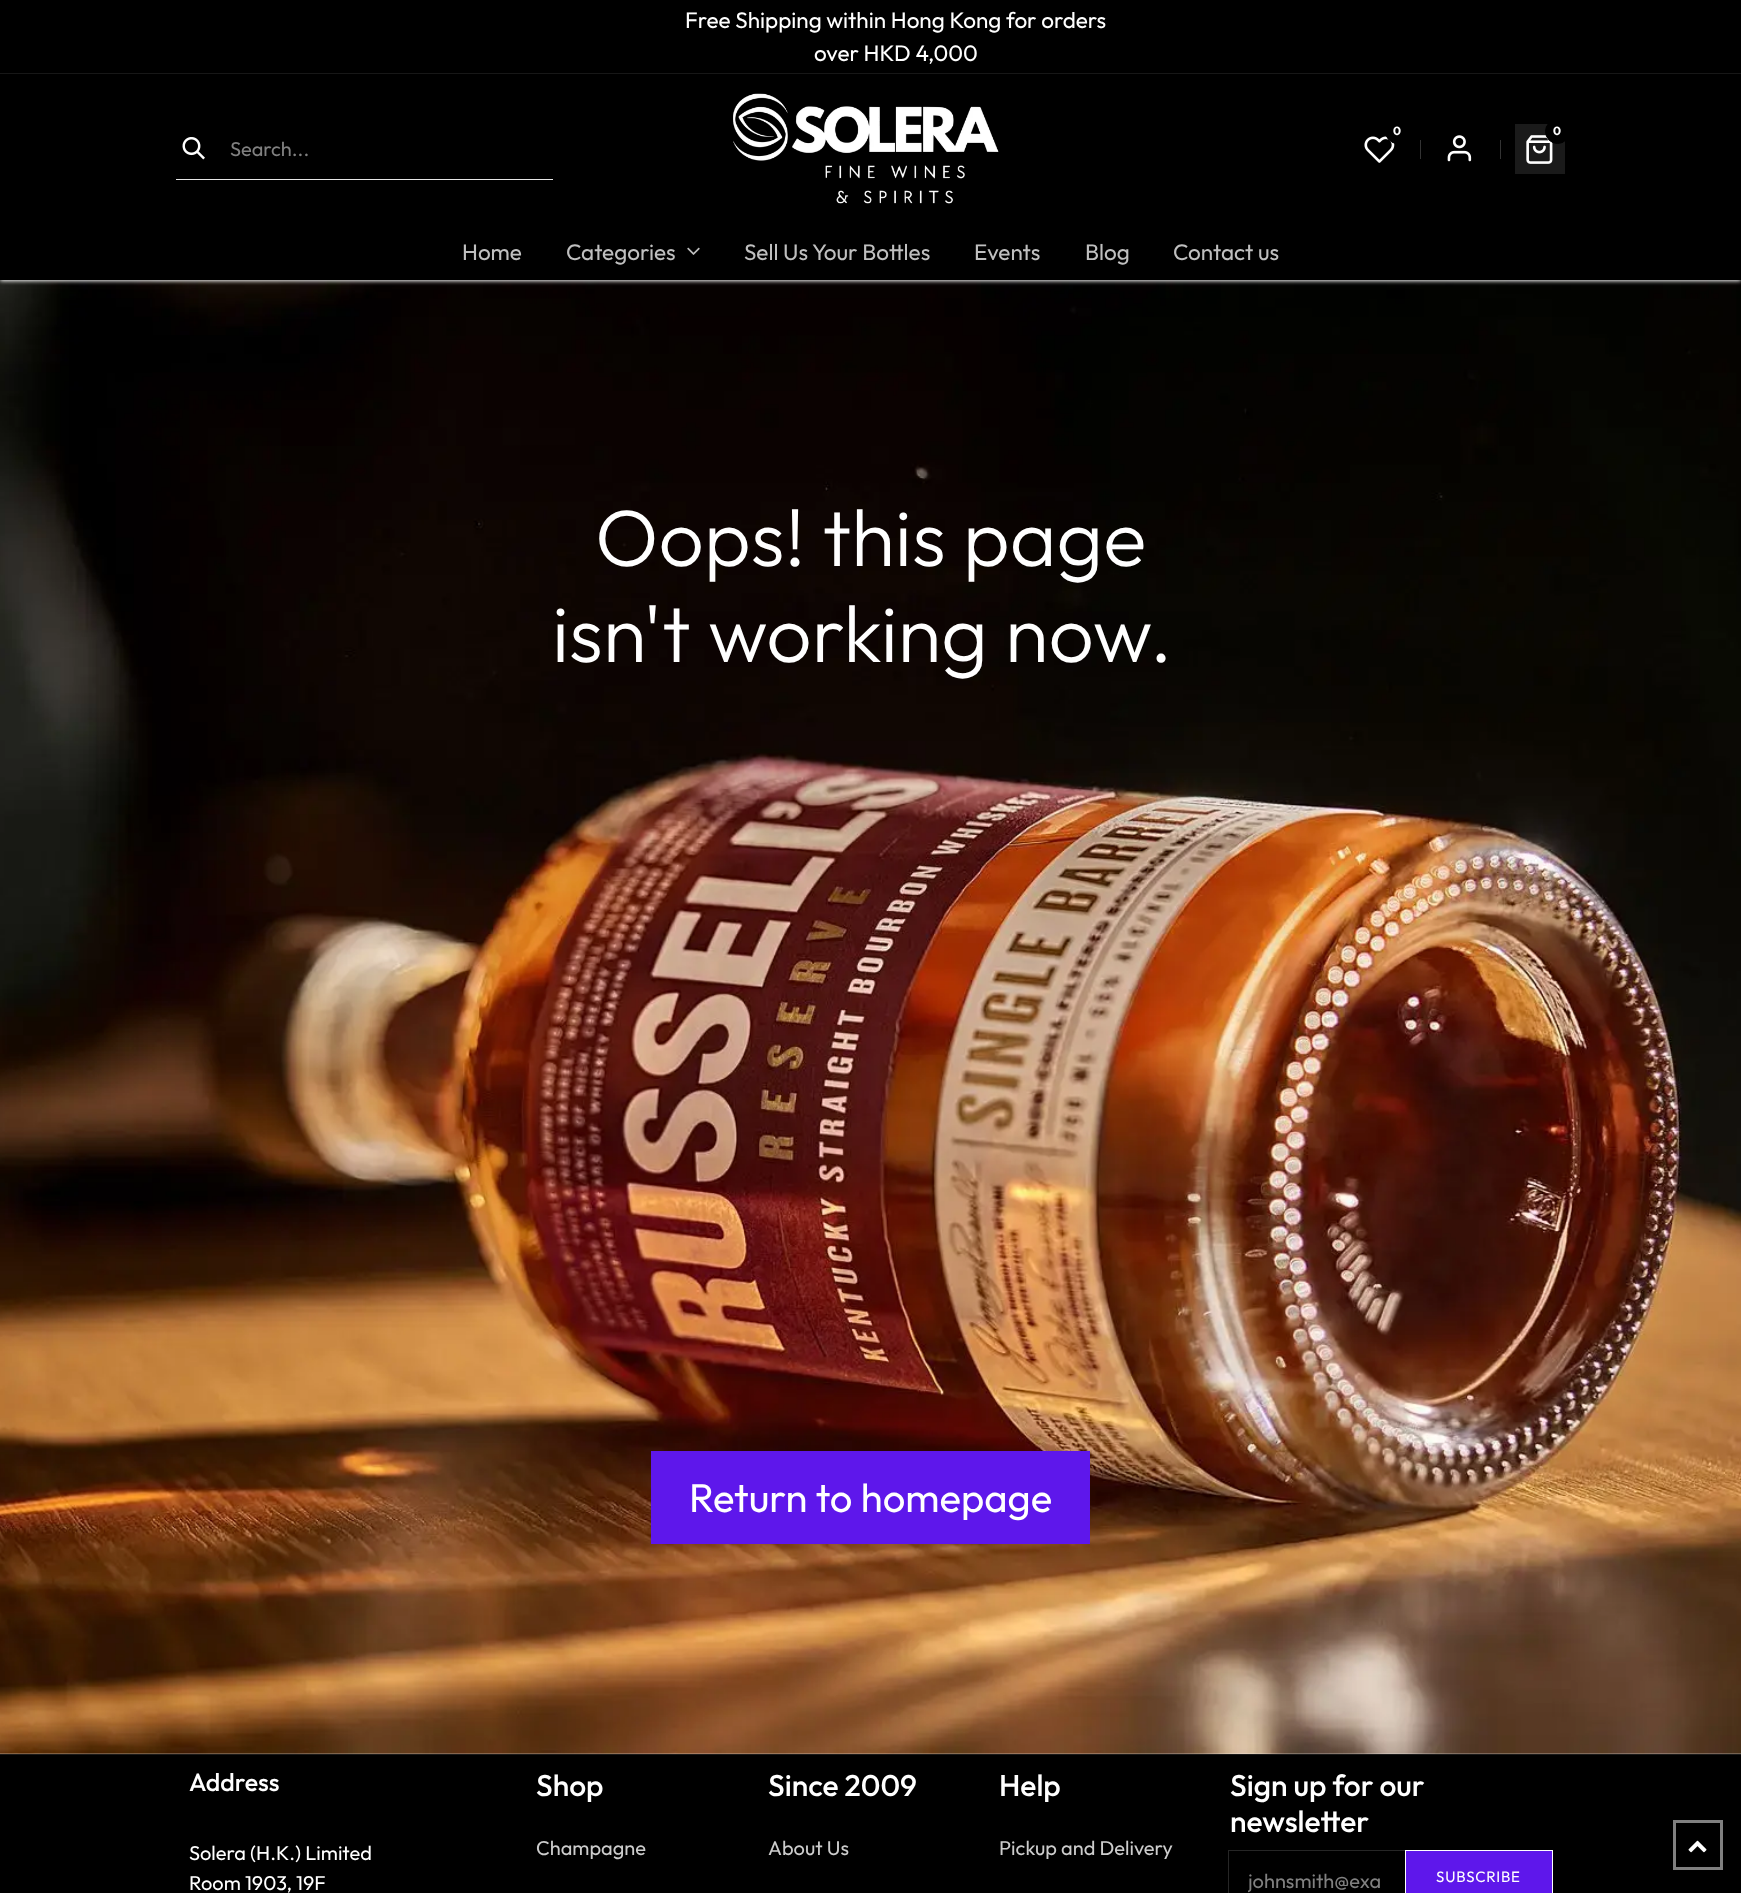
<svg xmlns="http://www.w3.org/2000/svg" xmlns:xlink="http://www.w3.org/1999/xlink" width="1741" height="1893" viewBox="0 0 1741 1893">
<style>
.cls-1{font:22.5px Outfit;fill:#ffffff}
.cls-2{font:bold 12px Outfit;fill:#ffffff}
.cls-3{font:20px Outfit;fill:#808080}
.cls-4{font:22.5px Outfit;fill:#bfbfbf}
.cls-5{font:300 80px Outfit;fill:#ffffff}
.cls-6{font:40px Outfit;fill:#ffffff}
.cls-7{font:500 25px Outfit;fill:#ffffff}
.cls-8{font:20px Outfit;fill:#ffffff}
.cls-9{font:500 30px Outfit;fill:#ffffff}
.cls-10{font:20px Outfit;fill:#cccccc}
.cls-11{font:15px Outfit;letter-spacing:0.75px;fill:#ffffff}
</style>
<defs>
<clipPath id="clip1"><rect x="1248" y="1869" width="138" height="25"/></clipPath>
</defs>
<rect width="100%" height="100%" fill="#ffffff"/>
<image xlink:href="image6.png" x="0" y="280" width="1741" height="1474"/>
<rect fill="#ffffff" filter="blur(2px)" x="0" y="1" width="1741" height="280"/>
<rect fill="#000000" x="0" y="0" width="1741" height="280"/>
<rect fill="#171717" x="0" y="73" width="1741" height="1"/>
<image xlink:href="image0.png" x="733" y="93" width="266" height="111"/>
<image xlink:href="image1.png" x="1364" y="136" width="31" height="27"/>
<circle fill="#000000" stroke="#000000" cx="1397.5" cy="131.5" r="12"/>
<rect fill="#1a1a1a" x="1515" y="124" width="50" height="50"/>
<image xlink:href="image2.png" x="1526" y="135" width="27" height="29"/>
<circle fill="#000000" stroke="#000000" cx="1557.5" cy="131.5" r="12"/>
<rect fill="#333333" x="1500" y="140" width="1" height="19"/>
<rect fill="#333333" x="1420" y="140" width="1" height="19"/>
<image xlink:href="image3.png" x="1447" y="135" width="25" height="27"/>
<image xlink:href="image4.png" x="182" y="137" width="23" height="23"/>
<rect fill="#e6e6e6" x="176" y="179" width="377" height="1"/>
<image xlink:href="image5.png" x="687" y="247" width="13" height="8"/>
<rect fill="#5e17eb" x="651" y="1451" width="439" height="93"/>
<rect fill="#000000" x="0" y="1755" width="1741" height="138"/>
<rect fill="#1a1a1a" x="0" y="1754" width="1741" height="1"/>
<rect fill="none" stroke="#262626" x="1228.5" y="1850.5" width="177" height="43"/>
<rect fill="#5e17eb" stroke="#ffffff" x="1405.5" y="1850.5" width="147" height="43"/>
<rect fill="none" stroke="#808080" stroke-width="3" x="1674.5" y="1821.5" width="47" height="47"/>
<image xlink:href="image7.png" x="1688" y="1840" width="19" height="13"/>
<text class="cls-1" x="685" y="28">Free Shipping within Hong Kong for orders</text>
<text class="cls-1" x="814" y="61">over HKD 4,000</text>
<text class="cls-2" x="1393" y="135">0</text>
<text class="cls-2" x="1553" y="135">0</text>
<text class="cls-3" x="230" y="156">Search...</text>
<text class="cls-4" x="462" y="260">Home</text>
<text class="cls-4" x="566" y="260">Categories</text>
<text class="cls-4" x="744" y="260">Sell Us Your Bottles</text>
<text class="cls-4" x="974" y="260">Events</text>
<text class="cls-4" x="1085" y="260">Blog</text>
<text class="cls-4" x="1173" y="260">Contact us</text>
<text class="cls-5" x="595" y="566">Oops! this page</text>
<text class="cls-5" x="552" y="662">isn't working now.</text>
<text class="cls-6" x="689" y="1512">Return to homepage</text>
<text class="cls-7" x="189" y="1791">Address</text>
<text class="cls-8"><tspan x="189" y="1860">Solera (H.K.) Limited</tspan><tspan x="189" y="1890">Room 1903, 19F</tspan></text>
<text class="cls-9" x="536" y="1796">Shop</text>
<text class="cls-10" x="536" y="1855">Champagne</text>
<text class="cls-9" x="768" y="1796">Since 2009</text>
<text class="cls-10" x="768" y="1855">About Us</text>
<text class="cls-9" x="999" y="1796">Help</text>
<text class="cls-10" x="999" y="1855">Pickup and Delivery</text>
<text class="cls-9"><tspan x="1230" y="1796">Sign up for our</tspan><tspan x="1230" y="1832">newsletter</tspan></text>
<g clip-path="url(#clip1)">
<text class="cls-3" x="1248" y="1888">johnsmith@exa</text>
</g>
<text class="cls-11" x="1436" y="1882">SUBSCRIBE</text>
</svg>
